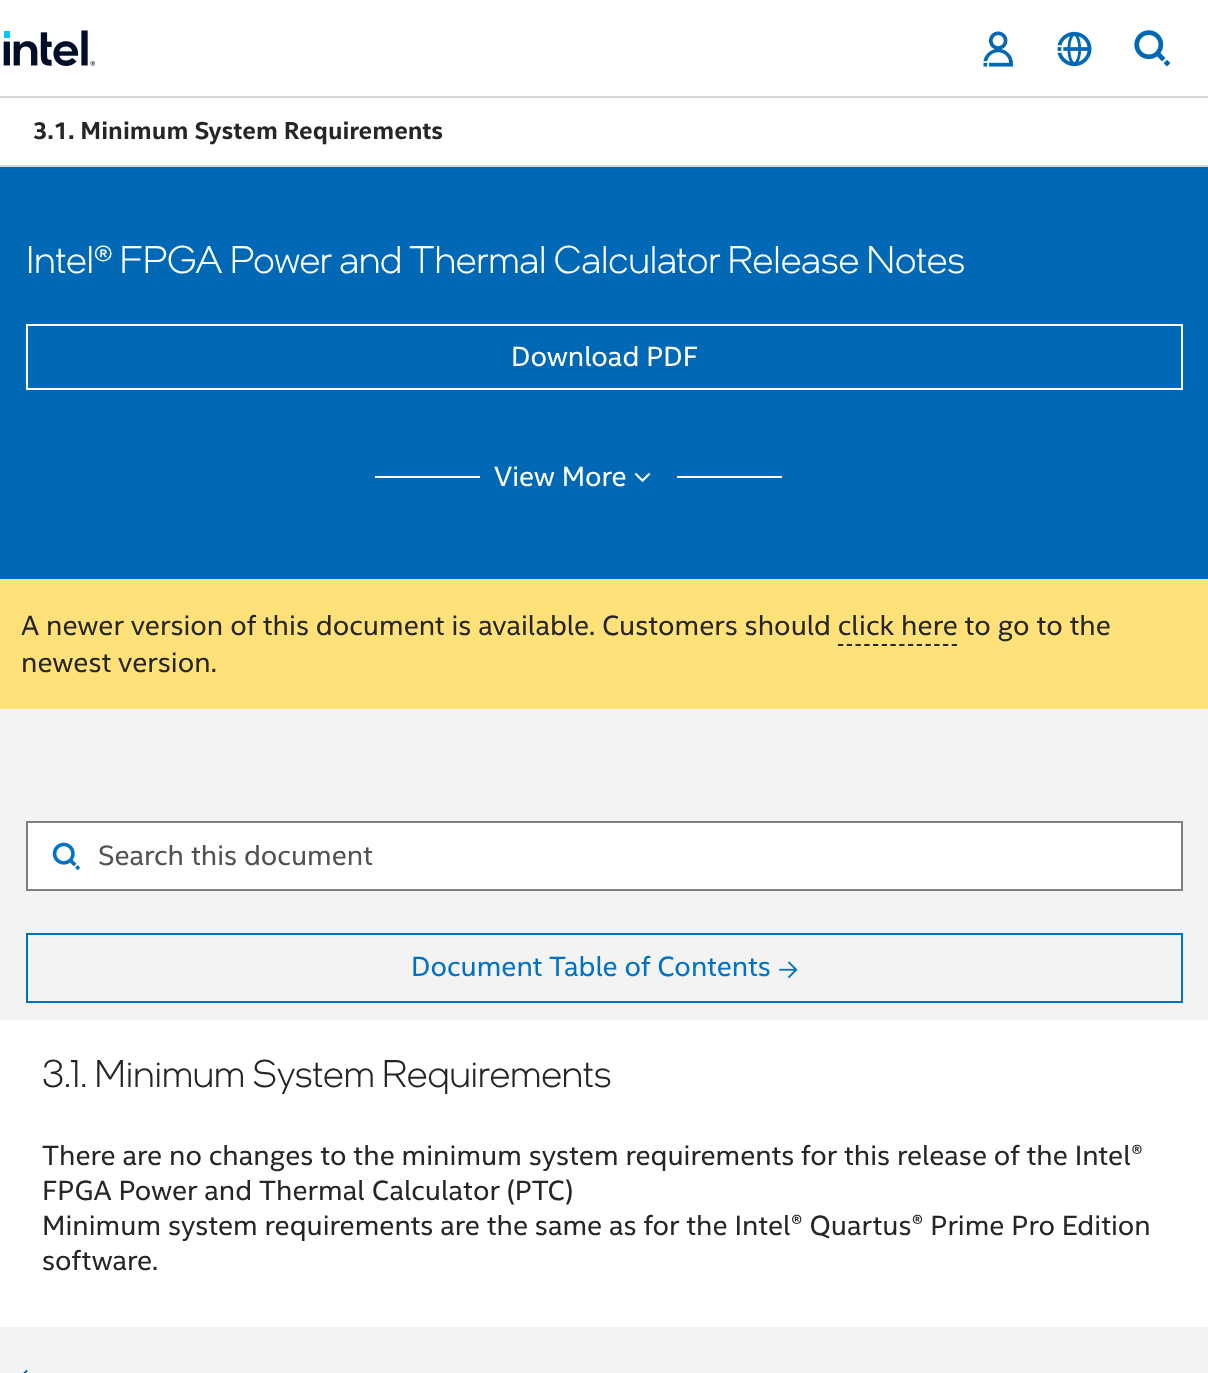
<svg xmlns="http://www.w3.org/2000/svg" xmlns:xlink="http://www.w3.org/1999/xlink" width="1208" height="1373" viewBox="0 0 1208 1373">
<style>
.cls-1{font:bold 24.5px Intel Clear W;fill:#262626}
.cls-2{font:300 38.5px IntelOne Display;fill:#ffffff}
.cls-3{font:28px Intel Clear W;fill:#ffffff}
.cls-4{font:28px Intel Clear W;fill:#262626}
.cls-5{font:28px Intel Clear W;fill:#525252}
.cls-6{font:28px Intel Clear W;fill:#0071c5}
.cls-7{font:300 38.5px IntelOne Display;fill:#262626}
</style>
<rect width="100%" height="100%" fill="#ffffff"/>
<rect fill="#d7d7d7" x="0" y="96" width="1208" height="2"/>
<image xlink:href="image0.png" x="3" y="30" width="92" height="36"/>
<image xlink:href="image1.png" x="983" y="31" width="30" height="36"/>
<image xlink:href="image2.png" x="1057" y="31" width="35" height="36"/>
<image xlink:href="image3.png" x="1134" y="30" width="37" height="37"/>
<rect fill="#d7d7d7" x="0" y="165" width="1208" height="2"/>
<rect fill="#0068b5" x="0" y="167" width="1208" height="412"/>
<rect fill="none" stroke="#ffffff" stroke-width="2" x="27" y="325" width="1155" height="64"/>
<rect fill="#ffffff" x="375" y="476" width="105" height="2"/>
<image xlink:href="image4.png" x="634" y="473" width="17" height="9"/>
<rect fill="#ffffff" x="677" y="476" width="105" height="2"/>
<rect fill="#ffe17a" x="0" y="579" width="1208" height="130"/>
<path fill="none" stroke="#262626" stroke-width="1.8" stroke-dasharray="5.25 3.5" d="M838 645H957"/>
<rect fill="#f3f3f3" x="0" y="709" width="1208" height="664"/>
<rect fill="#ffffff" stroke="#808080" stroke-width="2" x="27" y="822" width="1155" height="68"/>
<image xlink:href="image5.png" x="52" y="842" width="29" height="29"/>
<rect fill="none" stroke="#0071c5" stroke-width="2" x="27" y="934" width="1155" height="68"/>
<image xlink:href="image6.png" x="779" y="961" width="19" height="18"/>
<rect fill="#ffffff" x="0" y="1020" width="1208" height="307"/>
<image xlink:href="image7.png" x="23" y="1369" width="5" height="4"/>
<text class="cls-1" x="33" y="139">3.1. Minimum System Requirements</text>
<text class="cls-2" x="26" y="273">Intel® FPGA Power and Thermal Calculator Release Notes</text>
<text class="cls-3" x="511" y="366">Download PDF</text>
<text class="cls-3" x="494" y="486">View More</text>
<text class="cls-4"><tspan x="21" y="635">A newer version of this document is available. Customers should click here to go to the</tspan><tspan x="21" y="672">newest version.</tspan></text>
<text class="cls-5" x="98" y="865">Search this document</text>
<text class="cls-6" x="411" y="976">Document Table of Contents</text>
<text class="cls-7" x="42" y="1087">3.1. Minimum System Requirements</text>
<text class="cls-4"><tspan x="42" y="1165">There are no changes to the minimum system requirements for this release of the Intel®</tspan><tspan x="42" y="1200">FPGA Power and Thermal Calculator (PTC)</tspan><tspan x="42" y="1235">Minimum system requirements are the same as for the Intel® Quartus® Prime Pro Edition</tspan><tspan x="42" y="1270">software.</tspan></text>
</svg>
